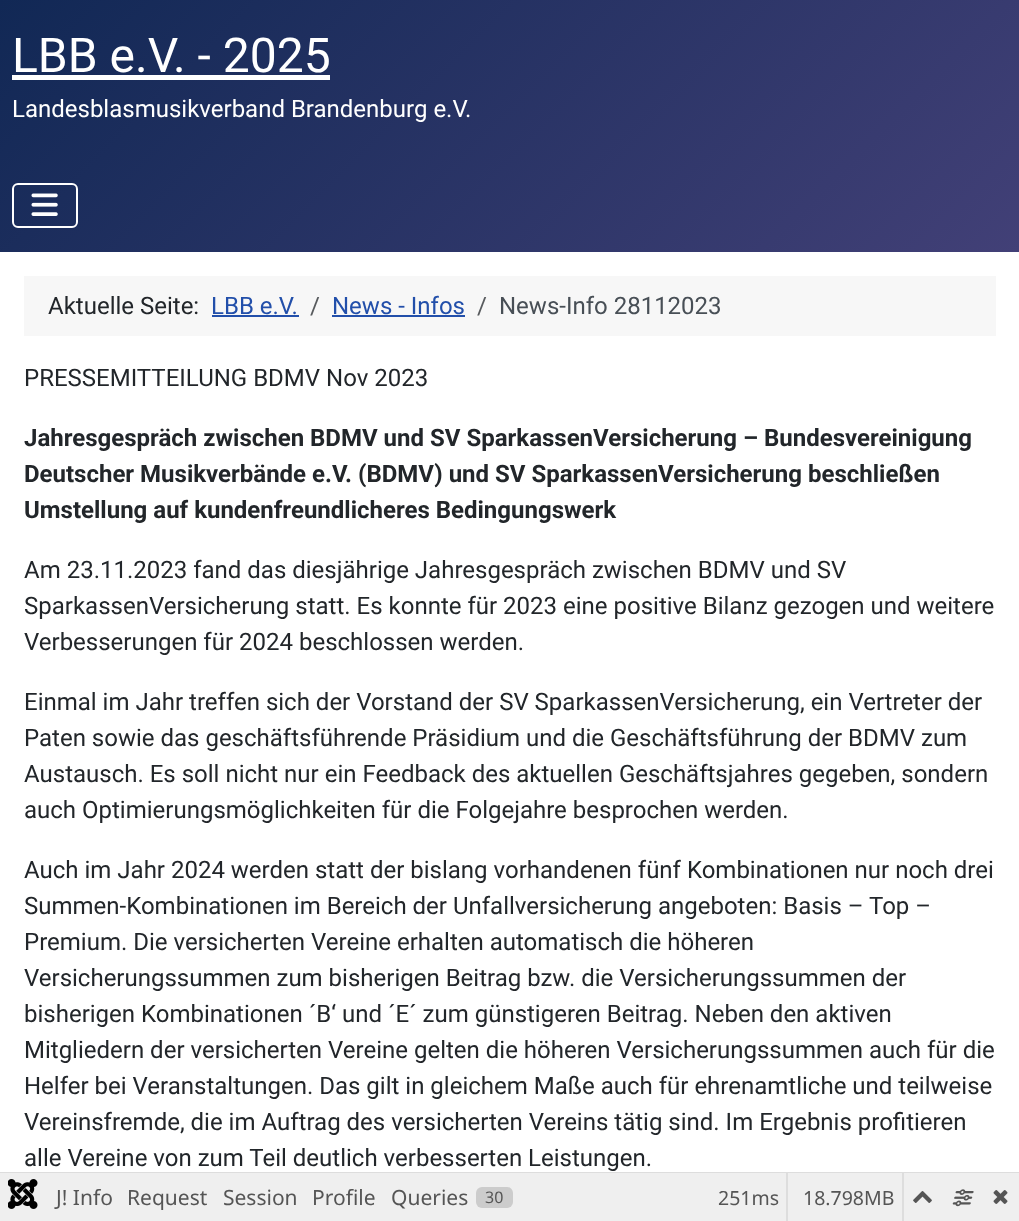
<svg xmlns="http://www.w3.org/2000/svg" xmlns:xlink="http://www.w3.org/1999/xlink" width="1019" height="1221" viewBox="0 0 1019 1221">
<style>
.cls-1{font:48px Roboto;fill:#ffffff}
.cls-2{font:24px Roboto;fill:#ffffff}
.cls-3{font:24px Roboto;fill:#22262a}
.cls-4{font:24px Roboto;fill:#224faa}
.cls-5{font:24px Roboto;fill:#575a5d}
.cls-6{font:24px Roboto;fill:#484f56}
.cls-7{font:bold 24px Roboto;fill:#22262a}
.cls-8{font:21px Noto Sans;fill:#555555}
.cls-9{font:16px Noto Sans;fill:#555555}
.cls-10{font:19.5px Noto Sans;fill:#555555}
</style>
<defs>
<linearGradient id="g1" gradientUnits="userSpaceOnUse" x1="192" y1="-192" x2="828" y2="444"><stop offset="0" stop-color="#112855"/><stop offset="1" stop-color="#424077"/></linearGradient>
</defs>
<rect width="100%" height="100%" fill="#ffffff"/>
<rect fill="url(#g1)" x="0" y="0" width="1019" height="252"/>
<rect fill="#ffffff" x="12" y="75" width="318" height="5"/>
<rect fill="none" stroke="#ffffff" stroke-width="2" x="13" y="184" width="64" height="43" rx="5"/>
<image xlink:href="image0.png" x="31" y="193" width="27" height="23"/>
<rect fill="#f7f7f7" x="24" y="276" width="972" height="60"/>
<rect fill="#224faa" x="212" y="315" width="87" height="2"/>
<rect fill="#224faa" x="332" y="315" width="133" height="2"/>
<rect fill="#dddddd" x="0" y="1172" width="1019" height="1"/>
<rect fill="#efefef" x="0" y="1173" width="1019" height="48"/>
<image xlink:href="image1.png" x="8" y="1179" width="30" height="30"/>
<rect fill="#cccccc" x="476" y="1187" width="37" height="21" rx="6"/>
<rect fill="#dddddd" x="786" y="1173" width="2" height="48"/>
<rect fill="#dddddd" x="902" y="1173" width="2" height="48"/>
<image xlink:href="image2.png" x="913" y="1191" width="19" height="12"/>
<image xlink:href="image3.png" x="952" y="1189" width="22" height="18"/>
<image xlink:href="image4.png" x="993" y="1190" width="15" height="14"/>
<text class="cls-1" x="12" y="72">LBB e.V. - 2025</text>
<text class="cls-2" x="12" y="117">Landesblasmusikverband Brandenburg e.V.</text>
<text class="cls-3" x="48" y="314">Aktuelle Seite:</text>
<text class="cls-4" x="211" y="314">LBB e.V.</text>
<text class="cls-5" x="310" y="314">/</text>
<text class="cls-4" x="332" y="314">News - Infos</text>
<text class="cls-5" x="477" y="314">/</text>
<text class="cls-6" x="499" y="314">News-Info 28112023</text>
<text class="cls-3" x="24" y="386">PRESSEMITTEILUNG BDMV Nov 2023</text>
<text class="cls-7"><tspan x="24" y="446">Jahresgespräch zwischen BDMV und SV SparkassenVersicherung – Bundesvereinigung</tspan><tspan x="24" y="482">Deutscher Musikverbände e.V. (BDMV) und SV SparkassenVersicherung beschließen</tspan><tspan x="24" y="518">Umstellung auf kundenfreundlicheres Bedingungswerk</tspan></text>
<text class="cls-3"><tspan x="24" y="578">Am 23.11.2023 fand das diesjährige Jahresgespräch zwischen BDMV und SV</tspan><tspan x="24" y="614">SparkassenVersicherung statt. Es konnte für 2023 eine positive Bilanz gezogen und weitere</tspan><tspan x="24" y="650">Verbesserungen für 2024 beschlossen werden.</tspan></text>
<text class="cls-3"><tspan x="24" y="710">Einmal im Jahr treffen sich der Vorstand der SV SparkassenVersicherung, ein Vertreter der</tspan><tspan x="24" y="746">Paten sowie das geschäftsführende Präsidium und die Geschäftsführung der BDMV zum</tspan><tspan x="24" y="782">Austausch. Es soll nicht nur ein Feedback des aktuellen Geschäftsjahres gegeben, sondern</tspan><tspan x="24" y="818">auch Optimierungsmöglichkeiten für die Folgejahre besprochen werden.</tspan></text>
<text class="cls-3"><tspan x="24" y="878">Auch im Jahr 2024 werden statt der bislang vorhandenen fünf Kombinationen nur noch drei</tspan><tspan x="24" y="914">Summen-Kombinationen im Bereich der Unfallversicherung angeboten: Basis – Top –</tspan><tspan x="24" y="950">Premium. Die versicherten Vereine erhalten automatisch die höheren</tspan><tspan x="24" y="986">Versicherungssummen zum bisherigen Beitrag bzw. die Versicherungssummen der</tspan><tspan x="24" y="1022">bisherigen Kombinationen ´B‘ und ´E´ zum günstigeren Beitrag. Neben den aktiven</tspan><tspan x="24" y="1058">Mitgliedern der versicherten Vereine gelten die höheren Versicherungssummen auch für die</tspan><tspan x="24" y="1094">Helfer bei Veranstaltungen. Das gilt in gleichem Maße auch für ehrenamtliche und teilweise</tspan><tspan x="24" y="1130">Vereinsfremde, die im Auftrag des versicherten Vereins tätig sind. Im Ergebnis profitieren</tspan><tspan x="24" y="1166">alle Vereine von zum Teil deutlich verbesserten Leistungen.</tspan></text>
<text class="cls-8" x="56" y="1205">J! Info</text>
<text class="cls-8" x="127" y="1205">Request</text>
<text class="cls-8" x="223" y="1205">Session</text>
<text class="cls-8" x="312" y="1205">Profile</text>
<text class="cls-8" x="391" y="1205">Queries</text>
<text class="cls-9" x="485" y="1203">30</text>
<text class="cls-10" x="718" y="1205">251ms</text>
<text class="cls-10" x="803" y="1205">18.798MB</text>
</svg>
